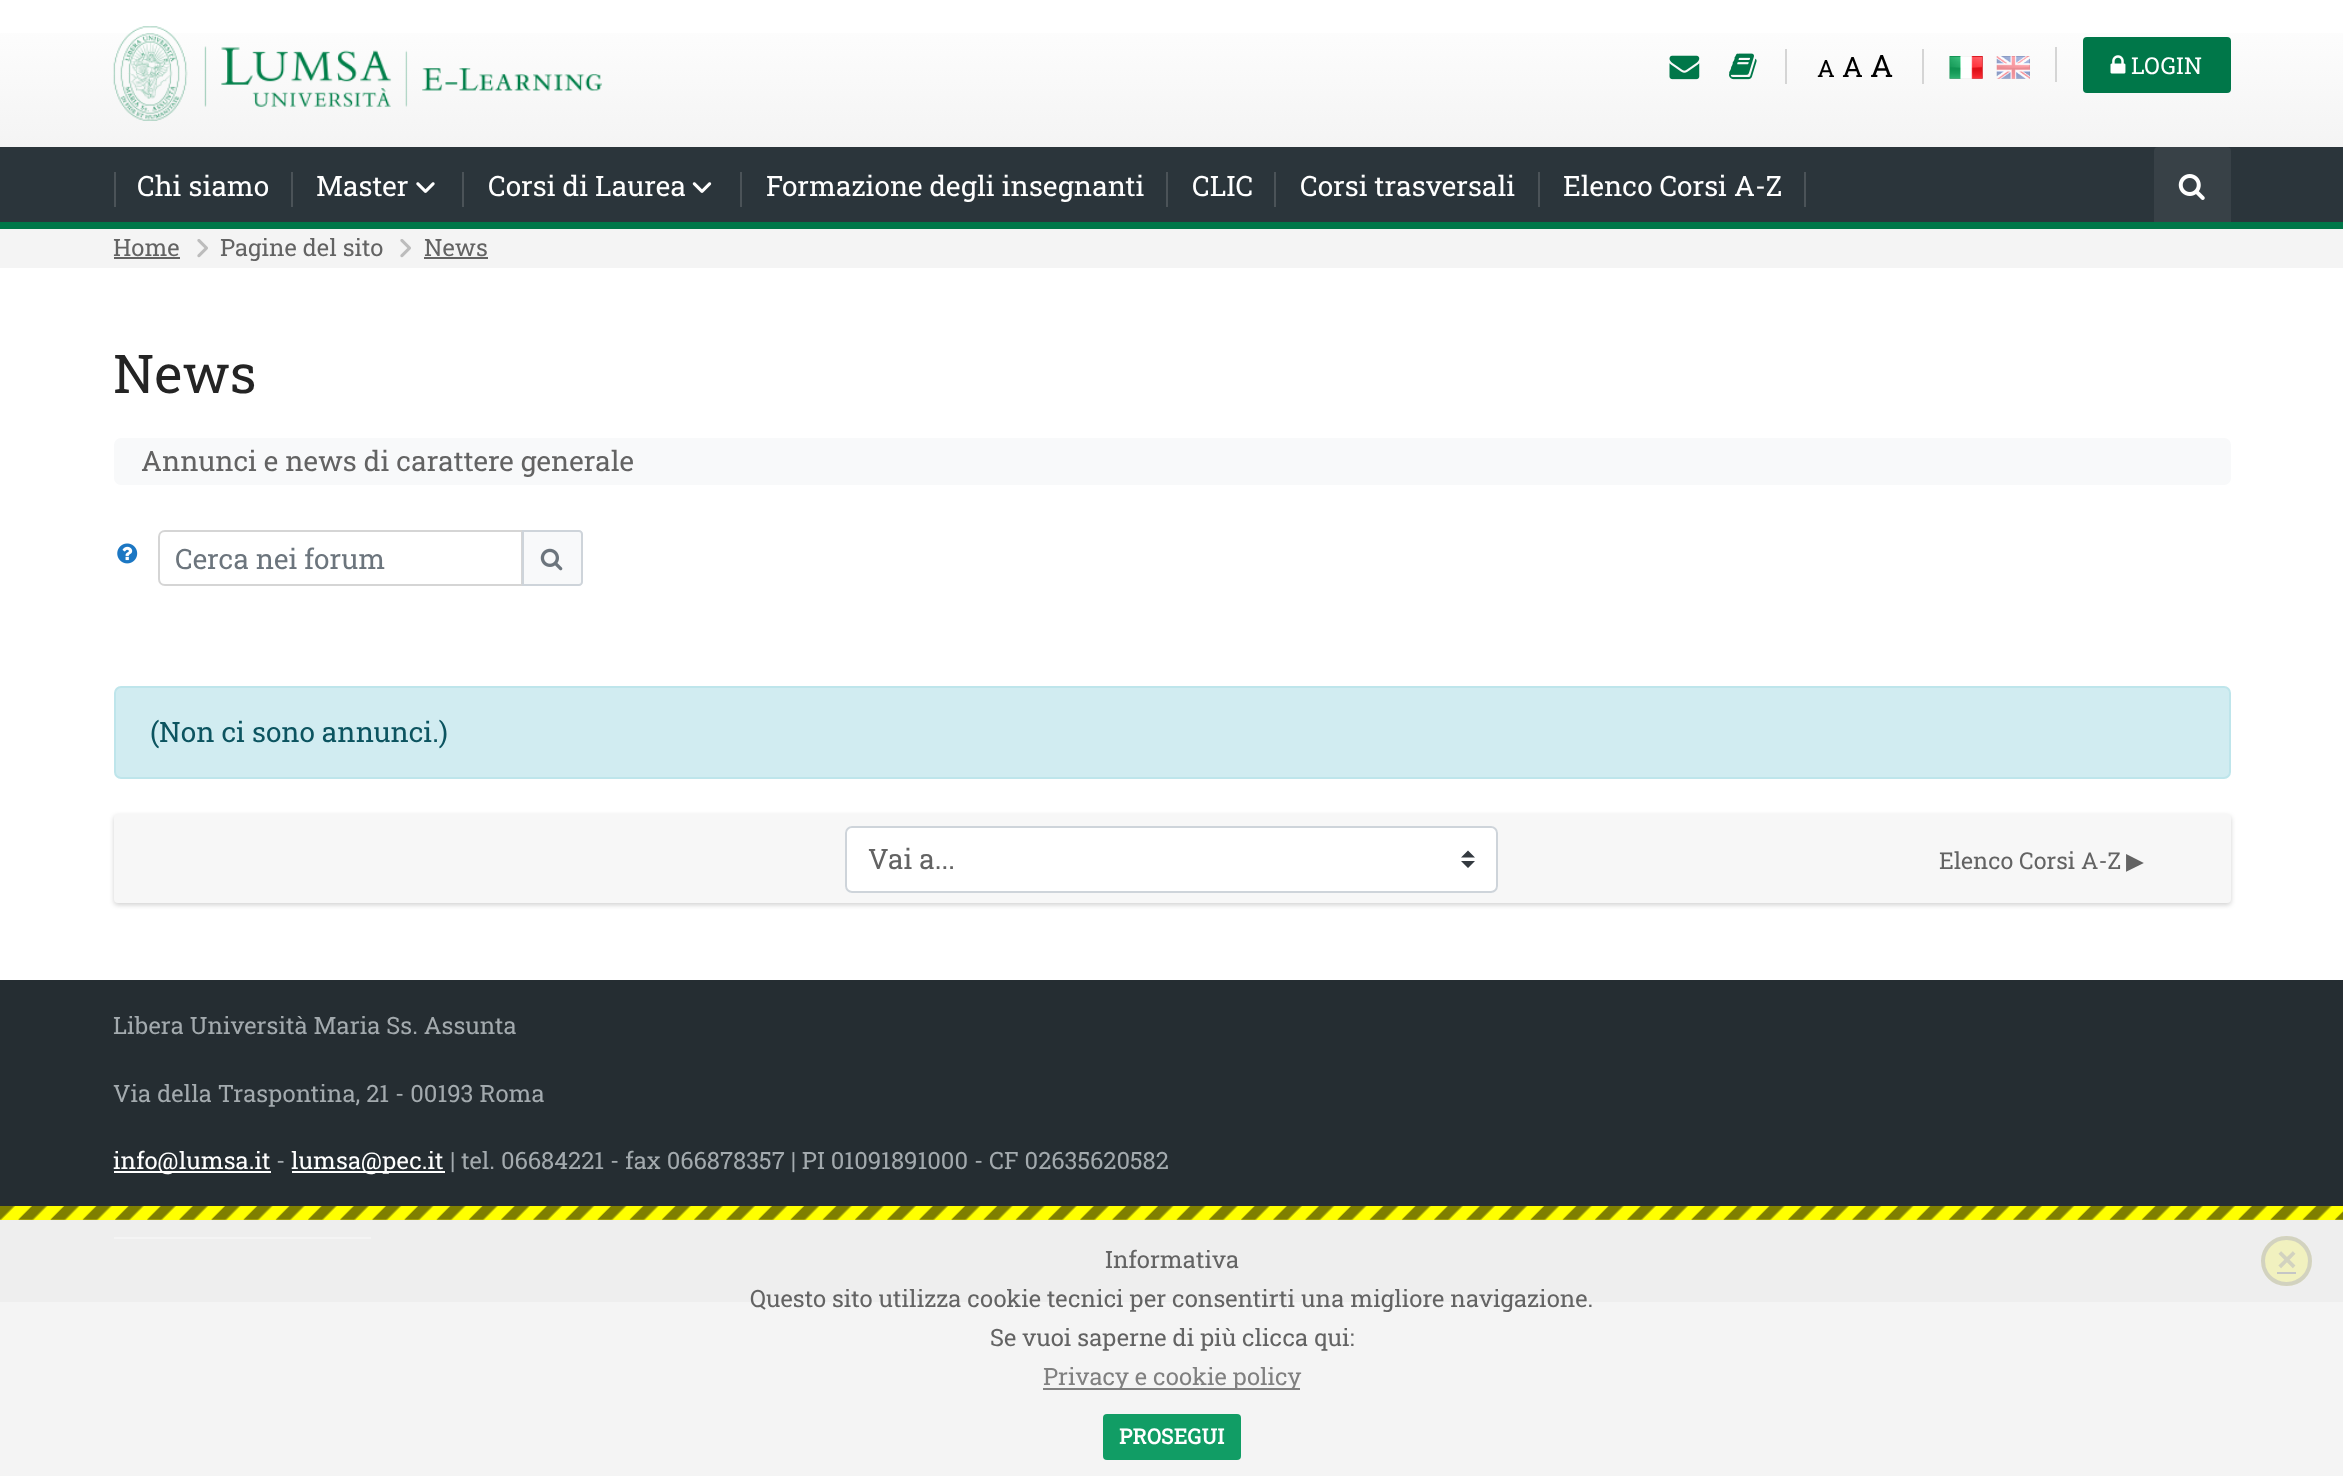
<svg xmlns="http://www.w3.org/2000/svg" xmlns:xlink="http://www.w3.org/1999/xlink" width="2343" height="1476" viewBox="0 0 2343 1476">
<style>
.cls-1{font:23.8px Roboto Slab;fill:#000000}
.cls-2{font:28px Roboto Slab;fill:#000000}
.cls-3{font:31px Roboto Slab;fill:#000000}
.cls-4{font:23.25px Roboto Slab;letter-spacing:0.25px;fill:#ffffff}
.cls-5{font:28px Roboto Slab;fill:#ffffff}
.cls-6{font:23.8px Roboto Slab;fill:#636363}
.cls-7{font:53.5px Roboto Slab;fill:#242424}
.cls-8{font:28px Roboto Slab;fill:#636363}
.cls-9{font:28px Roboto Slab;fill:#6c757d}
.cls-10{font:28px Roboto Slab;fill:#0c5460}
.cls-11{font:23.25px Roboto Slab;fill:#636363}
.cls-12{font:23.25px DejaVu Sans;fill:#636363}
.cls-13{font:23.8px Roboto Slab;fill:#a3aaae}
.cls-14{font:23.8px Roboto Slab;fill:#ffffff}
.cls-15{font:23.8px Roboto Slab;fill:#808080}
.cls-16{font:bold 34px Liberation Sans;fill:#d2d2bf}
.cls-17{font:bold 21px Roboto Slab;letter-spacing:0.25px;fill:#ffffff}
</style>
<defs>
<linearGradient id="g1" gradientUnits="userSpaceOnUse" x1="1172" y1="0" x2="1172" y2="147"><stop offset="0" stop-color="#ffffff"/><stop offset="1" stop-color="#f4f4f4"/></linearGradient>
</defs>
<rect width="100%" height="100%" fill="#ffffff"/>
<rect fill="#f4f4f4" x="0" y="1302" width="2343" height="174"/>
<rect fill="url(#g1)" x="0" y="33" width="2343" height="114"/>
<image xlink:href="image0.png" x="113" y="26" width="489" height="95"/>
<image xlink:href="image1.png" x="1669" y="55" width="31" height="25"/>
<image xlink:href="image2.png" x="1729" y="53" width="28" height="27"/>
<rect fill="#d5d5d5" x="1785" y="49" width="2" height="35"/>
<rect fill="#d5d5d5" x="1922" y="49" width="2" height="35"/>
<image xlink:href="image3.png" x="1949" y="56" width="34" height="23"/>
<image xlink:href="image4.png" x="1996" y="56" width="34" height="23"/>
<rect fill="#d5d5d5" x="2055" y="47" width="2" height="35"/>
<rect fill="#007749" stroke="#007749" stroke-width="2" x="2084" y="38" width="146" height="54" rx="3"/>
<image xlink:href="image5.png" x="2110" y="55" width="16" height="19"/>
<rect fill="#2b353b" x="0" y="147" width="2343" height="75"/>
<rect fill="#4b5358" x="114" y="172" width="2" height="35"/>
<rect fill="#4b5358" x="291" y="172" width="2" height="35"/>
<image xlink:href="image6.png" x="416" y="182" width="19" height="11"/>
<rect fill="#4b5358" x="462" y="172" width="2" height="35"/>
<image xlink:href="image7.png" x="692" y="182" width="20" height="11"/>
<rect fill="#4b5358" x="740" y="172" width="2" height="35"/>
<rect fill="#4b5358" x="1166" y="172" width="2" height="35"/>
<rect fill="#4b5358" x="1274" y="172" width="2" height="35"/>
<rect fill="#4b5358" x="1538" y="172" width="2" height="35"/>
<rect fill="#4b5358" x="1804" y="172" width="2" height="35"/>
<rect fill="#384147" x="2154" y="147" width="77" height="82" rx="4"/>
<image xlink:href="image8.png" x="2178" y="174" width="27" height="26"/>
<rect fill="#007749" x="0" y="222" width="2343" height="7"/>
<rect fill="#f4f4f4" x="0" y="229" width="2343" height="39"/>
<rect fill="#636363" x="114" y="257" width="66" height="2"/>
<image xlink:href="image9.png" x="197" y="239" width="11" height="19"/>
<image xlink:href="image9.png" x="400" y="239" width="11" height="19"/>
<rect fill="#636363" x="424" y="257" width="64" height="2"/>
<rect fill="#f8f9fa" x="114" y="438" width="2117" height="47" rx="7"/>
<image xlink:href="image10.png" x="117" y="543" width="21" height="21"/>
<path fill="none" stroke="#d5d5d5" stroke-width="2" d="M165 531H522V585H165C161.5 585 159 582.5 159 579V537C159 533.5 161.5 531 165 531Z"/>
<path fill="#f8f9fa" stroke="#ced4da" stroke-width="2" d="M523 531H579C580.5 531 582 532.5 582 534V582C582 583.5 580.5 585 579 585H523Z"/>
<image xlink:href="image11.png" x="540" y="548" width="23" height="23"/>
<rect fill="#d1ecf1" stroke="#bee5eb" stroke-width="2" x="115" y="687" width="2115" height="91" rx="6"/>
<rect fill="#000000" fill-opacity="0.18" filter="blur(2.5px)" x="114" y="816" width="2117" height="89" rx="4"/>
<rect fill="#f7f7f7" x="114" y="814" width="2117" height="89" rx="4"/>
<rect fill="#ffffff" x="845" y="826" width="653" height="67" rx="7"/>
<path fill="#343a40" d="M1468 850.5L1461 857.5H1475ZM1468 868L1461 861H1475Z"/>
<rect fill="none" stroke="#ced4da" stroke-width="2" x="846" y="827" width="651" height="65" rx="6"/>
<rect fill="#252d32" x="0" y="980" width="2343" height="226"/>
<rect fill="#eeeeee" x="0" y="1220" width="2343" height="82"/>
<rect fill="#ffffff" x="114" y="1171" width="157" height="2"/>
<rect fill="#ffffff" x="292" y="1171" width="153" height="2"/>
<rect fill="#f4f4f4" x="114" y="1237" width="257" height="2"/>
<rect fill="#ffff00" x="0" y="1206" width="2343" height="14"/>
<image xlink:href="image12.png" x="0" y="1206" width="2343" height="14"/>
<rect fill="#808080" x="1043" y="1388" width="257" height="2"/>
<rect fill="#f1f1bf" x="2261" y="1236" width="51" height="50" rx="25"/>
<rect fill="none" stroke="#bebebf" stroke-opacity="0.6" stroke-width="4" x="2263" y="1238" width="47" height="46" rx="23"/>
<rect fill="#c5c6c6" x="2277" y="1272" width="19" height="2"/>
<rect fill="#119d65" x="1103" y="1414" width="138" height="46" rx="4"/>
<text class="cls-1" x="1817" y="77">A</text>
<text class="cls-2" x="1842" y="77">A</text>
<text class="cls-3" x="1870" y="77">A</text>
<text class="cls-4" x="2131" y="74">LOGIN</text>
<text class="cls-5" x="137" y="196">Chi siamo</text>
<text class="cls-5" x="316" y="196">Master</text>
<text class="cls-5" x="488" y="196">Corsi di Laurea</text>
<text class="cls-5" x="766" y="196">Formazione degli insegnanti</text>
<text class="cls-5" x="1192" y="196">CLIC</text>
<text class="cls-5" x="1300" y="196">Corsi trasversali</text>
<text class="cls-5" x="1563" y="196">Elenco Corsi A-Z</text>
<text class="cls-6" x="113" y="256">Home</text>
<text class="cls-6" x="220" y="256">Pagine del sito</text>
<text class="cls-6" x="424" y="256">News</text>
<text class="cls-7" x="113" y="393">News</text>
<text class="cls-8" x="141" y="471">Annunci e news di carattere generale</text>
<text class="cls-9" x="175" y="569">Cerca nei forum</text>
<text class="cls-10" x="150" y="742">(Non ci sono annunci.)</text>
<text class="cls-8" x="868" y="869">Vai a...</text>
<text class="cls-11" x="1939" y="869">Elenco Corsi A-Z</text>
<text class="cls-12" x="2126" y="869">▶︎</text>
<text class="cls-13" x="113" y="1034">Libera Università Maria Ss. Assunta</text>
<text class="cls-13" x="113" y="1102">Via della Traspontina, 21 - 00193 Roma</text>
<text class="cls-14" x="113" y="1169">info@lumsa.it</text>
<text class="cls-13" x="276" y="1169">-</text>
<text class="cls-14" x="291" y="1169">lumsa@pec.it</text>
<text class="cls-13" x="450" y="1169">| tel. 06684221 - fax 066878357 | PI 01091891000 - CF 02635620582</text>
<text class="cls-6" x="1105" y="1268">Informativa</text>
<text class="cls-6" x="750" y="1307">Questo sito utilizza cookie tecnici per consentirti una migliore navigazione.</text>
<text class="cls-6" x="990" y="1346">Se vuoi saperne di più clicca qui:</text>
<text class="cls-15" x="1043" y="1385">Privacy e cookie policy</text>
<text class="cls-16" x="2277" y="1271">×</text>
<text class="cls-17" x="1119" y="1444">PROSEGUI</text>
</svg>
